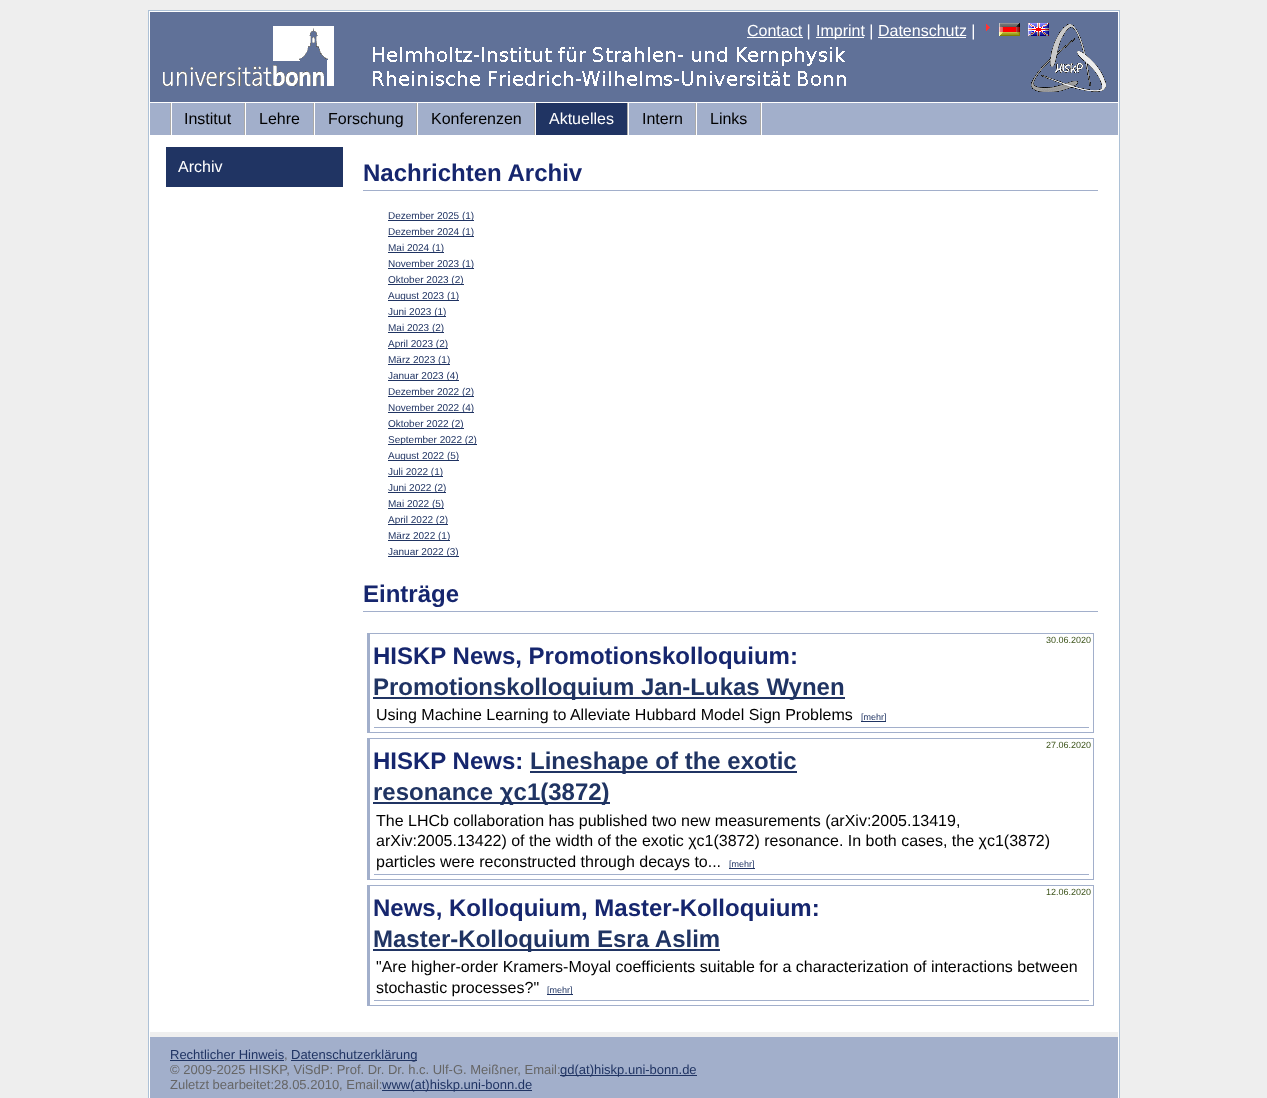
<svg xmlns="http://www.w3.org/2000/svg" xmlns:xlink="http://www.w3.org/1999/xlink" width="1267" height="1098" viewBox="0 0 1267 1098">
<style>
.cls-1{font:16px Liberation Sans;fill:#ffffff}
.cls-2{font:16px Liberation Sans;fill:#000000}
.cls-3{font:bold 24px Liberation Sans;fill:#16266e}
.cls-4{font:10px Liberation Sans;fill:#203463}
.cls-5{font:9px Liberation Sans;fill:#3e551c}
.cls-6{font:bold 24px Liberation Sans;fill:#203463}
.cls-7{font:9px Liberation Sans;fill:#203463}
.cls-8{font:13px Liberation Sans;fill:#203463}
.cls-9{font:13px Liberation Sans;fill:#666666}
</style>
<rect width="100%" height="100%" fill="#eeeeee"/>
<rect fill="#ffffff" stroke="#adc1d6" x="148.5" y="10.5" width="971" height="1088"/>
<rect fill="#607198" x="150" y="12" width="968" height="90"/>
<image xlink:href="image0.png" x="373" y="24" width="733" height="68"/>
<image xlink:href="image1.png" x="163" y="26" width="171" height="60"/>
<rect fill="#ffffff" x="747" y="37" width="56" height="1"/>
<rect fill="#ffffff" x="816" y="37" width="48" height="1"/>
<image xlink:href="image2.png" x="986" y="24" width="4" height="7"/>
<image xlink:href="image3.png" x="999" y="23" width="21" height="13"/>
<image xlink:href="image4.png" x="1028" y="23" width="21" height="13"/>
<rect fill="#ffffff" x="878" y="37" width="88" height="1"/>
<rect fill="#a2afcb" x="150" y="103" width="968" height="32"/>
<rect fill="#ffffff" x="761" y="103" width="1" height="32"/>
<rect fill="#aaaaaa" x="170" y="103" width="1" height="32"/>
<rect fill="#aaaaaa" x="244" y="103" width="1" height="32"/>
<rect fill="#ffffff" x="171" y="103" width="1" height="32"/>
<rect fill="#aaaaaa" x="313" y="103" width="1" height="32"/>
<rect fill="#ffffff" x="245" y="103" width="1" height="32"/>
<rect fill="#aaaaaa" x="416" y="103" width="1" height="32"/>
<rect fill="#ffffff" x="314" y="103" width="1" height="32"/>
<rect fill="#aaaaaa" x="534" y="103" width="1" height="32"/>
<rect fill="#ffffff" x="417" y="103" width="1" height="32"/>
<rect fill="#203463" x="536" y="103" width="91" height="32"/>
<rect fill="#aaaaaa" x="627" y="103" width="1" height="32"/>
<rect fill="#ffffff" x="535" y="103" width="1" height="32"/>
<rect fill="#aaaaaa" x="695" y="103" width="1" height="32"/>
<rect fill="#ffffff" x="628" y="103" width="1" height="32"/>
<rect fill="#aaaaaa" x="760" y="103" width="1" height="32"/>
<rect fill="#ffffff" x="696" y="103" width="1" height="32"/>
<rect fill="#203463" x="166" y="147" width="177" height="40"/>
<rect fill="#a2afcb" x="363" y="190" width="735" height="1"/>
<rect fill="#203463" x="388" y="220" width="86" height="1"/>
<rect fill="#203463" x="388" y="236" width="86" height="1"/>
<rect fill="#203463" x="388" y="252" width="56" height="1"/>
<rect fill="#203463" x="388" y="268" width="86" height="1"/>
<rect fill="#203463" x="388" y="284" width="76" height="1"/>
<rect fill="#203463" x="388" y="300" width="71" height="1"/>
<rect fill="#203463" x="388" y="316" width="58" height="1"/>
<rect fill="#203463" x="388" y="332" width="56" height="1"/>
<rect fill="#203463" x="388" y="348" width="60" height="1"/>
<rect fill="#203463" x="388" y="364" width="62" height="1"/>
<rect fill="#203463" x="388" y="380" width="71" height="1"/>
<rect fill="#203463" x="388" y="396" width="86" height="1"/>
<rect fill="#203463" x="388" y="412" width="86" height="1"/>
<rect fill="#203463" x="388" y="428" width="76" height="1"/>
<rect fill="#203463" x="388" y="444" width="89" height="1"/>
<rect fill="#203463" x="388" y="460" width="71" height="1"/>
<rect fill="#203463" x="388" y="476" width="55" height="1"/>
<rect fill="#203463" x="388" y="492" width="58" height="1"/>
<rect fill="#203463" x="388" y="508" width="56" height="1"/>
<rect fill="#203463" x="388" y="524" width="60" height="1"/>
<rect fill="#203463" x="388" y="540" width="62" height="1"/>
<rect fill="#203463" x="388" y="556" width="71" height="1"/>
<rect fill="#a2afcb" x="363" y="611" width="735" height="1"/>
<rect fill="#a2afcb" x="367" y="633" width="727" height="1"/>
<rect fill="#a2afcb" x="1093" y="633" width="1" height="100"/>
<rect fill="#a2afcb" x="367" y="732" width="727" height="1"/>
<rect fill="#a2afcb" x="367" y="633" width="3" height="100"/>
<rect fill="#203463" x="373" y="697" width="472" height="2"/>
<rect fill="#203463" x="861" y="721" width="25" height="1"/>
<rect fill="#a2afcb" stroke="#ffffff" x="373.5" y="726.5" width="716" height="2"/>
<rect fill="#a2afcb" x="367" y="738" width="727" height="1"/>
<rect fill="#a2afcb" x="1093" y="738" width="1" height="142"/>
<rect fill="#a2afcb" x="367" y="879" width="727" height="1"/>
<rect fill="#a2afcb" x="367" y="738" width="3" height="142"/>
<rect fill="#203463" x="530" y="771" width="267" height="2"/>
<rect fill="#203463" x="373" y="802" width="237" height="2"/>
<rect fill="#203463" x="729" y="868" width="26" height="1"/>
<rect fill="#a2afcb" stroke="#ffffff" x="373.5" y="873.5" width="716" height="2"/>
<rect fill="#a2afcb" x="367" y="885" width="727" height="1"/>
<rect fill="#a2afcb" x="1093" y="885" width="1" height="121"/>
<rect fill="#a2afcb" x="367" y="1005" width="727" height="1"/>
<rect fill="#a2afcb" x="367" y="885" width="3" height="121"/>
<rect fill="#203463" x="373" y="949" width="347" height="2"/>
<rect fill="#203463" x="547" y="994" width="26" height="1"/>
<rect fill="#a2afcb" stroke="#ffffff" x="373.5" y="999.5" width="716" height="2"/>
<rect fill="#a2afcb" x="150" y="1037" width="968" height="61"/>
<rect fill="#efefef" x="150" y="1032" width="968" height="5"/>
<rect fill="#203463" x="170" y="1060" width="114" height="1"/>
<rect fill="#203463" x="291" y="1060" width="126" height="1"/>
<rect fill="#203463" x="560" y="1075" width="137" height="1"/>
<rect fill="#203463" x="382" y="1090" width="150" height="1"/>
<text class="cls-1" x="747" y="36">Contact |</text>
<text class="cls-1" x="816" y="36">Imprint | Datenschutz |</text>
<text class="cls-2" x="184" y="124">Institut</text>
<text class="cls-2" x="259" y="124">Lehre</text>
<text class="cls-2" x="328" y="124">Forschung</text>
<text class="cls-2" x="431" y="124">Konferenzen</text>
<text class="cls-1" x="549" y="124">Aktuelles</text>
<text class="cls-2" x="642" y="124">Intern</text>
<text class="cls-2" x="710" y="124">Links</text>
<text class="cls-1" x="178" y="172">Archiv</text>
<text class="cls-3" x="363" y="181">Nachrichten Archiv</text>
<text class="cls-4"><tspan x="388" y="219">Dezember 2025 (1)</tspan><tspan x="388" y="235">Dezember 2024 (1)</tspan><tspan x="388" y="251">Mai 2024 (1)</tspan><tspan x="388" y="267">November 2023 (1)</tspan><tspan x="388" y="283">Oktober 2023 (2)</tspan><tspan x="388" y="299">August 2023 (1)</tspan><tspan x="388" y="315">Juni 2023 (1)</tspan><tspan x="388" y="331">Mai 2023 (2)</tspan><tspan x="388" y="347">April 2023 (2)</tspan><tspan x="388" y="363">März 2023 (1)</tspan><tspan x="388" y="379">Januar 2023 (4)</tspan><tspan x="388" y="395">Dezember 2022 (2)</tspan><tspan x="388" y="411">November 2022 (4)</tspan><tspan x="388" y="427">Oktober 2022 (2)</tspan><tspan x="388" y="443">September 2022 (2)</tspan><tspan x="388" y="459">August 2022 (5)</tspan><tspan x="388" y="475">Juli 2022 (1)</tspan><tspan x="388" y="491">Juni 2022 (2)</tspan><tspan x="388" y="507">Mai 2022 (5)</tspan><tspan x="388" y="523">April 2022 (2)</tspan><tspan x="388" y="539">März 2022 (1)</tspan><tspan x="388" y="555">Januar 2022 (3)</tspan></text>
<text class="cls-3" x="363" y="602">Einträge</text>
<text class="cls-5" x="1046" y="643">30.06.2020</text>
<text class="cls-3" x="373" y="664">HISKP News, Promotionskolloquium:</text>
<text class="cls-6" x="373" y="695">Promotionskolloquium Jan-Lukas Wynen</text>
<text class="cls-2" x="376" y="720">Using Machine Learning to Alleviate Hubbard Model Sign Problems</text>
<text class="cls-7" x="861" y="720">[mehr]</text>
<text class="cls-5" x="1046" y="748">27.06.2020</text>
<text class="cls-3" x="373" y="769">HISKP News:</text>
<text class="cls-6" x="530" y="769">Lineshape of the exotic</text>
<text class="cls-6" x="373" y="800">resonance χc1(3872)</text>
<text class="cls-2"><tspan x="376" y="826">The LHCb collaboration has published two new measurements (arXiv:2005.13419,</tspan><tspan x="376" y="846">arXiv:2005.13422) of the width of the exotic χc1(3872) resonance. In both cases, the χc1(3872)</tspan><tspan x="376" y="867">particles were reconstructed through decays to...</tspan></text>
<text class="cls-7" x="729" y="867">[mehr]</text>
<text class="cls-5" x="1046" y="895">12.06.2020</text>
<text class="cls-3" x="373" y="916">News, Kolloquium, Master-Kolloquium:</text>
<text class="cls-6" x="373" y="947">Master-Kolloquium Esra Aslim</text>
<text class="cls-2"><tspan x="376" y="972">"Are higher-order Kramers-Moyal coefficients suitable for a characterization of interactions between</tspan><tspan x="376" y="993">stochastic processes?"</tspan></text>
<text class="cls-7" x="547" y="993">[mehr]</text>
<text class="cls-8" x="170" y="1059">Rechtlicher Hinweis</text>
<text class="cls-9" x="284" y="1059">,</text>
<text class="cls-8" x="291" y="1059">Datenschutzerklärung</text>
<text class="cls-9" x="170" y="1074">© 2009-2025 HISKP, ViSdP: Prof. Dr. Dr. h.c. Ulf-G. Meißner, Email:</text>
<text class="cls-8" x="560" y="1074">gd(at)hiskp.uni-bonn.de</text>
<text class="cls-9" x="170" y="1089">Zuletzt bearbeitet:28.05.2010, Email:</text>
<text class="cls-8" x="382" y="1089">www(at)hiskp.uni-bonn.de</text>
</svg>
